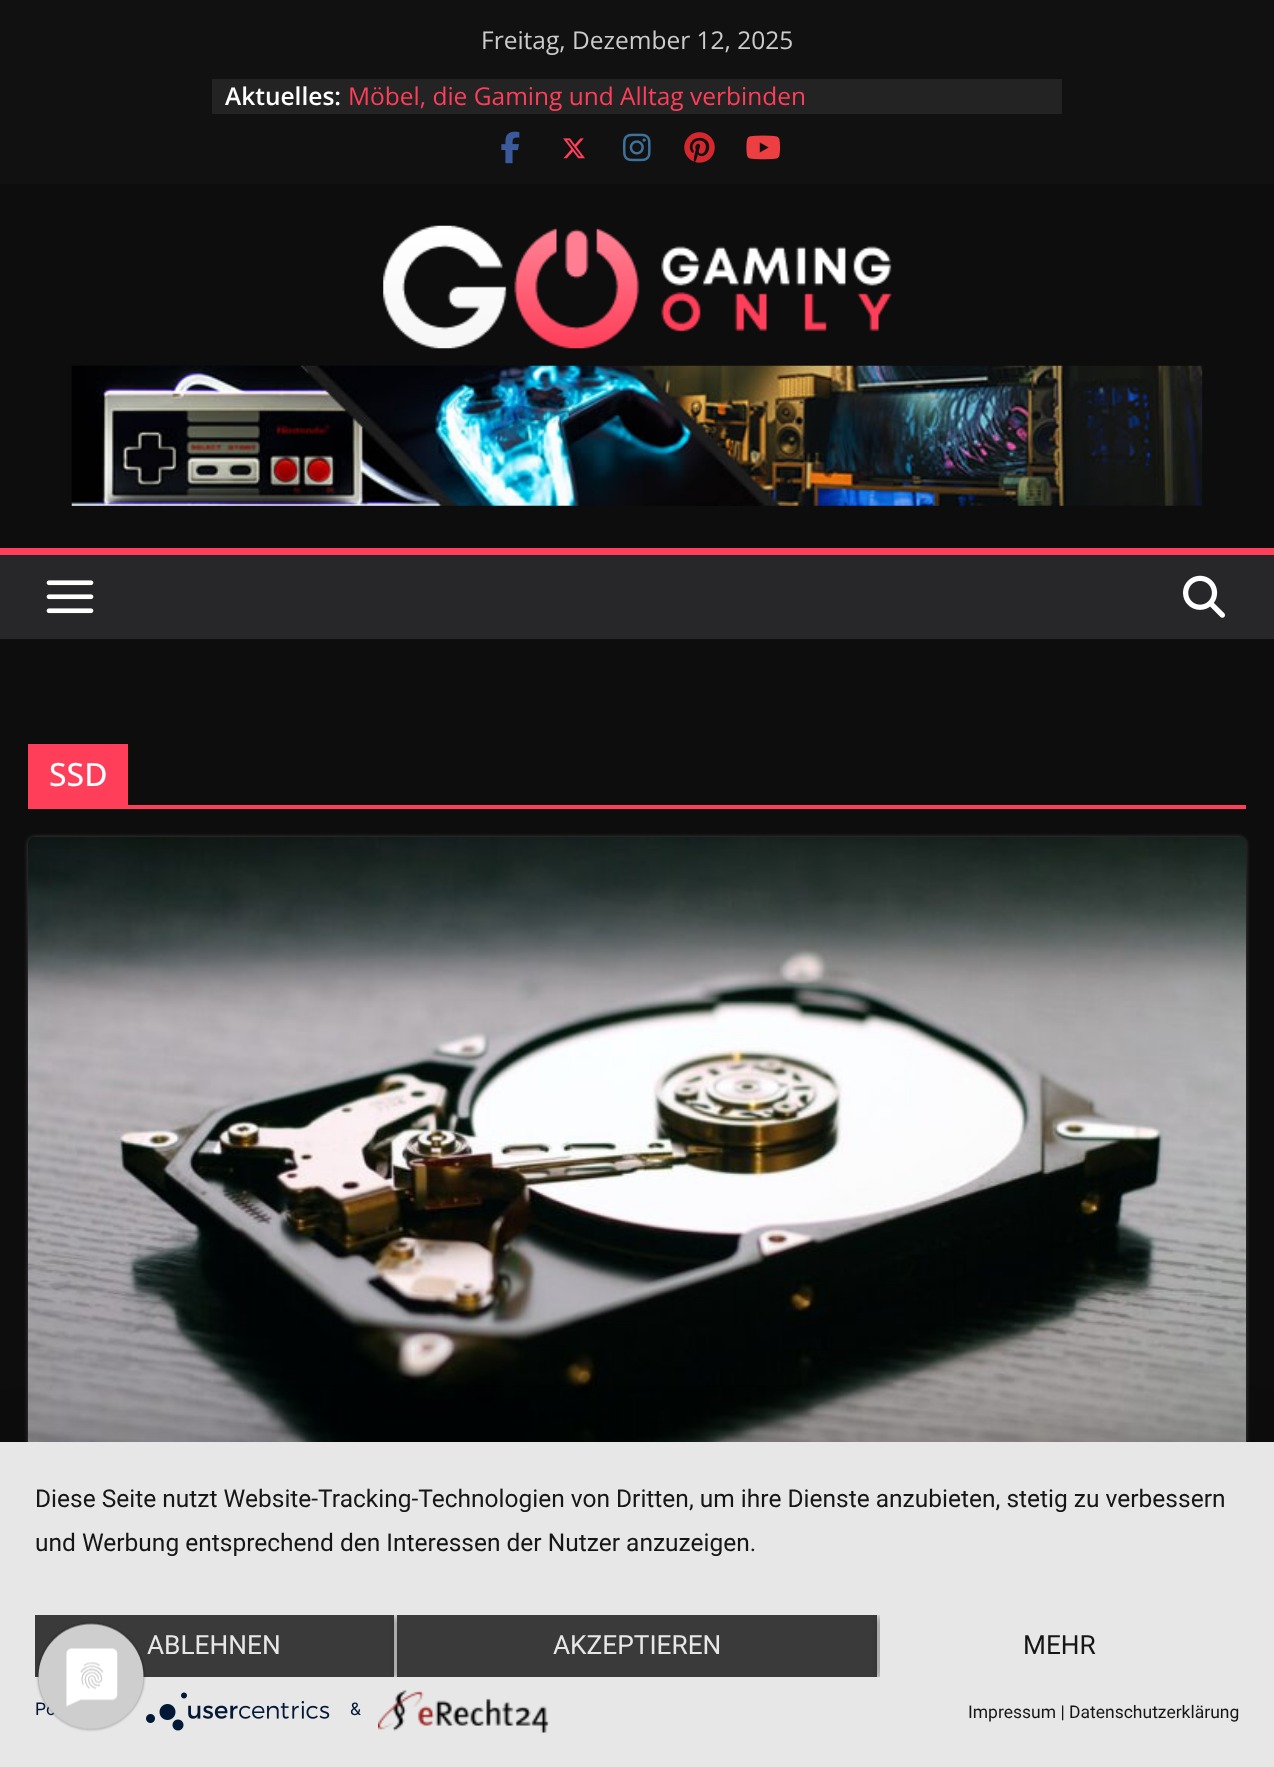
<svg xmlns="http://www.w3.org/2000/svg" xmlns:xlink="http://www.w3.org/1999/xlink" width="1274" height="1767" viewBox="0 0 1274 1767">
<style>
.cls-1{font:24.5px Open Sans;fill:#cccccc}
.cls-2{font:600 24.5px Open Sans;fill:#ffffff}
.cls-3{font:24.5px Open Sans;fill:#ff3f5a}
.cls-4{font:500 32px Open Sans;fill:#ffffff}
.cls-5{font:24.5px Roboto;fill:#161616}
.cls-6{font:26.25px Roboto;fill:#e7e7e7}
.cls-7{font:26.25px Roboto;fill:#161616}
.cls-8{font:17.5px Roboto;fill:#021836}
.cls-9{font:17.5px Roboto;fill:#161616}
</style>
<defs>
<clipPath id="clip1"><rect x="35" y="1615" width="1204" height="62"/></clipPath>
</defs>
<rect width="100%" height="100%" fill="#0d0d0d"/>
<rect fill="#111111" x="0" y="0" width="1274" height="184"/>
<rect fill="#232323" x="212" y="79" width="850" height="35"/>
<image xlink:href="image0.png" x="501" y="131" width="19" height="33"/>
<image xlink:href="image1.png" x="563" y="138" width="22" height="21"/>
<image xlink:href="image2.png" x="623" y="133" width="28" height="29"/>
<image xlink:href="image3.png" x="684" y="132" width="31" height="31"/>
<image xlink:href="image4.png" x="746" y="135" width="34" height="25"/>
<image xlink:href="image5.png" x="383" y="225" width="510" height="124"/>
<image xlink:href="image6.png" x="71" y="365" width="1132" height="141"/>
<rect fill="#27272a" x="0" y="555" width="1274" height="84"/>
<rect fill="#ff3f5a" x="0" y="548" width="1274" height="7"/>
<image xlink:href="image7.png" x="46" y="580" width="48" height="34"/>
<image xlink:href="image8.png" x="1183" y="575" width="42" height="43"/>
<rect fill="#ff3f5a" x="28" y="805" width="1218" height="4"/>
<rect fill="#ff3f5a" x="28" y="744" width="100" height="61"/>
<rect fill="#ffffff" fill-opacity="0.24" filter="blur(2px)" x="28" y="837" width="1218" height="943" rx="7"/>
<image xlink:href="image9.png" x="28" y="837" width="1218" height="605"/>
<rect fill="#000000" fill-opacity="0.3" filter="blur(31.5px)" x="0" y="1453" width="1274" height="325"/>
<rect fill="#e7e7e7" x="0" y="1442" width="1274" height="325"/>
<g clip-path="url(#clip1)">
<rect fill="#000000" fill-opacity="0.4" filter="blur(3.5px)" x="35" y="1617" width="359" height="61"/>
</g>
<rect fill="#3a3a3a" x="35" y="1615" width="359" height="62"/>
<g clip-path="url(#clip1)">
<rect fill="#000000" fill-opacity="0.4" filter="blur(3.5px)" x="397" y="1617" width="480" height="61"/>
</g>
<rect fill="#3a3a3a" x="397" y="1615" width="480" height="62"/>
<g clip-path="url(#clip1)">
<rect fill="#000000" fill-opacity="0.4" filter="blur(3.5px)" x="880" y="1617" width="359" height="61"/>
</g>
<rect fill="#e7e7e7" x="880" y="1615" width="359" height="62"/>
<image xlink:href="image10.png" x="146" y="1692" width="184" height="39"/>
<image xlink:href="image11.png" x="378" y="1690" width="171" height="43"/>
<text class="cls-1" x="481" y="49">Freitag, Dezember 12, 2025</text>
<text class="cls-2" x="225" y="105">Aktuelles:</text>
<text class="cls-3" x="348" y="105">Möbel, die Gaming und Alltag verbinden</text>
<text class="cls-4" x="49" y="786">SSD</text>
<text class="cls-5"><tspan x="35" y="1507">Diese Seite nutzt Website-Tracking-Technologien von Dritten, um ihre Dienste anzubieten, stetig zu verbessern</tspan><tspan x="35" y="1551">und Werbung entsprechend den Interessen der Nutzer anzuzeigen.</tspan></text>
<text class="cls-6" x="147" y="1654">ABLEHNEN</text>
<text class="cls-6" x="553" y="1654">AKZEPTIEREN</text>
<text class="cls-7" x="1023" y="1654">MEHR</text>
<text class="cls-8" x="35" y="1715">Po</text>
<text class="cls-8" x="350" y="1715">&amp;</text>
<text class="cls-9" x="968" y="1718">Impressum | Datenschutzerklärung</text>
<image xlink:href="image12.png" x="36" y="1622" width="110" height="110"/>
</svg>
